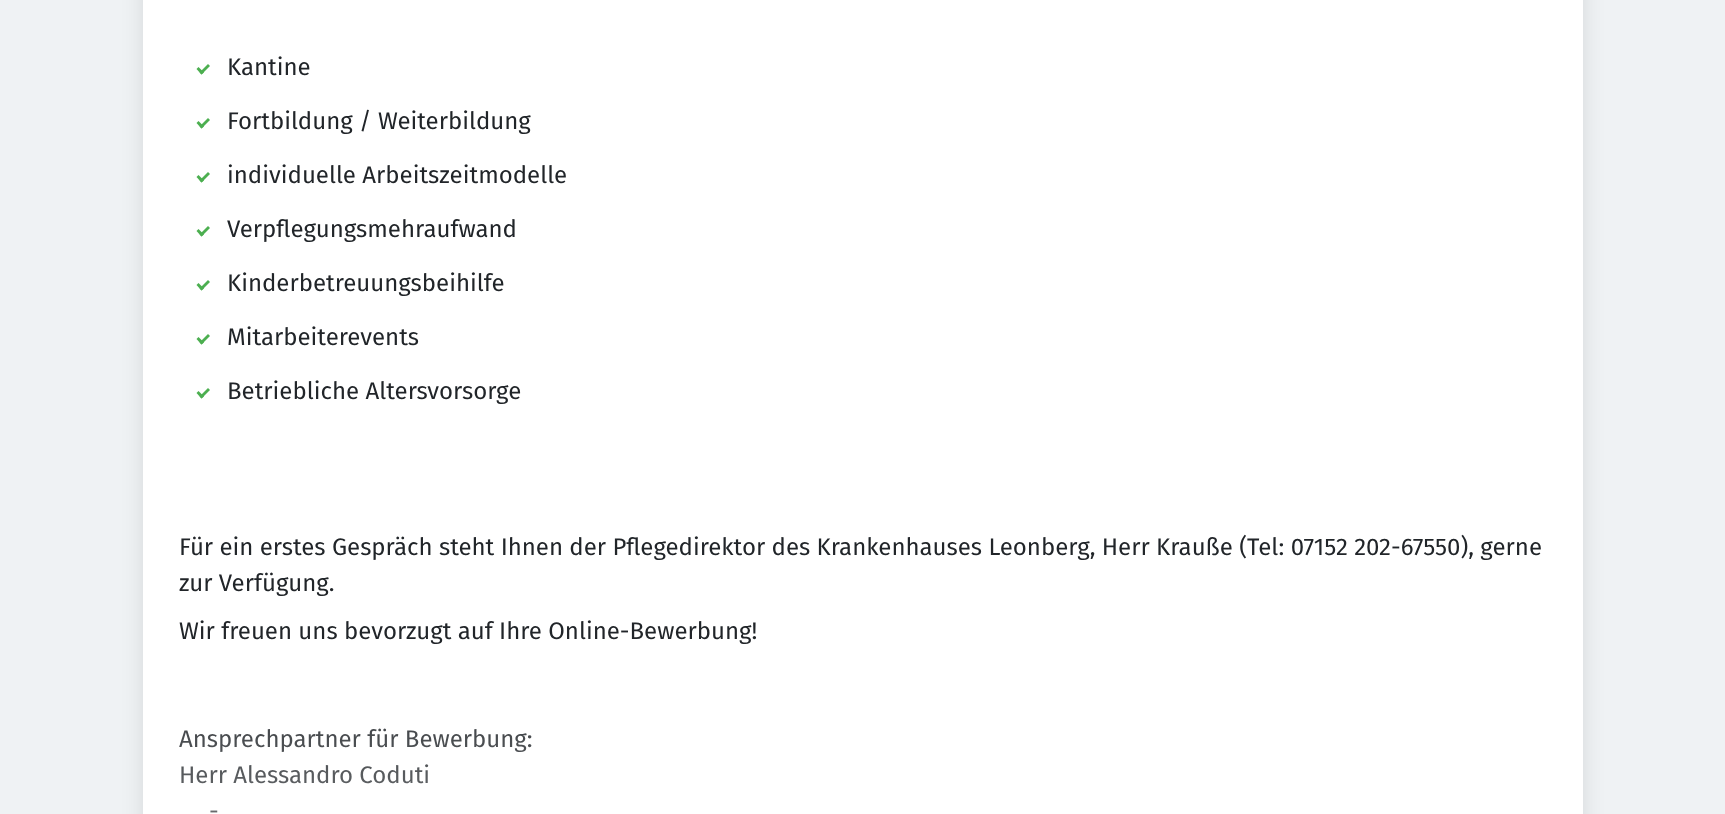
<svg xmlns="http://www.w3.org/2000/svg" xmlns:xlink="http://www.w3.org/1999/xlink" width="1725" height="814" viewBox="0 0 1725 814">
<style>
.cls-1{font:24px Fira Sans;fill:#212529}
</style>
<defs>
<linearGradient id="g1" gradientUnits="userSpaceOnUse" x1="863" y1="639" x2="863" y2="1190"><stop offset="0" stop-color="#ffffff" stop-opacity="0"/><stop offset="1" stop-color="#ffffff"/></linearGradient>
</defs>
<rect width="100%" height="100%" fill="#eff2f4"/>
<rect fill="#000000" fill-opacity="0.1" filter="blur(11px)" x="143" y="-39" width="1440" height="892" rx="6"/>
<rect fill="#ffffff" x="143" y="0" width="1440" height="814"/>
<path fill="#4caf50" d="M208 64L210 66L201.5 74.5L199.5 72.5Z"/>
<path fill="#4caf50" d="M198.5 67L204 72.5L201.5 74.5L196.5 69Z"/>
<path fill="#4caf50" d="M208 118L210 120L201.5 128.5L199.5 126.5Z"/>
<path fill="#4caf50" d="M198.5 121L204 126.5L201.5 128.5L196.5 123Z"/>
<path fill="#4caf50" d="M208 172L210 174L201.5 182.5L199.5 180.5Z"/>
<path fill="#4caf50" d="M198.5 175L204 180.5L201.5 182.5L196.5 177Z"/>
<path fill="#4caf50" d="M208 226L210 228L201.5 236.5L199.5 234.5Z"/>
<path fill="#4caf50" d="M198.5 229L204 234.5L201.5 236.5L196.5 231Z"/>
<path fill="#4caf50" d="M208 280L210 282L201.5 290.5L199.5 288.5Z"/>
<path fill="#4caf50" d="M198.5 283L204 288.5L201.5 290.5L196.5 285Z"/>
<path fill="#4caf50" d="M208 334L210 336L201.5 344.5L199.5 342.5Z"/>
<path fill="#4caf50" d="M198.5 337L204 342.5L201.5 344.5L196.5 339Z"/>
<path fill="#4caf50" d="M208 388L210 390L201.5 398.5L199.5 396.5Z"/>
<path fill="#4caf50" d="M198.5 391L204 396.5L201.5 398.5L196.5 393Z"/>
<text class="cls-1" x="227" y="75">Kantine</text>
<text class="cls-1" x="227" y="129">Fortbildung / Weiterbildung</text>
<text class="cls-1" x="227" y="183">individuelle Arbeitszeitmodelle</text>
<text class="cls-1" x="227" y="237">Verpflegungsmehraufwand</text>
<text class="cls-1" x="227" y="291">Kinderbetreuungsbeihilfe</text>
<text class="cls-1" x="227" y="345">Mitarbeiterevents</text>
<text class="cls-1" x="227" y="399">Betriebliche Altersvorsorge</text>
<text class="cls-1"><tspan x="179" y="555">Für ein erstes Gespräch steht Ihnen der Pflegedirektor des Krankenhauses Leonberg, Herr Krauße (Tel: 07152 202-67550), gerne</tspan><tspan x="179" y="591">zur Verfügung.</tspan></text>
<text class="cls-1" x="179" y="639">Wir freuen uns bevorzugt auf Ihre Online-Bewerbung!</text>
<text class="cls-1"><tspan x="179" y="747">Ansprechpartner für Bewerbung:</tspan><tspan x="179" y="783">Herr Alessandro Coduti</tspan></text>
<text class="cls-1" x="209" y="819">-</text>
<rect fill="url(#g1)" x="178" y="728" width="353" height="85"/>
</svg>
